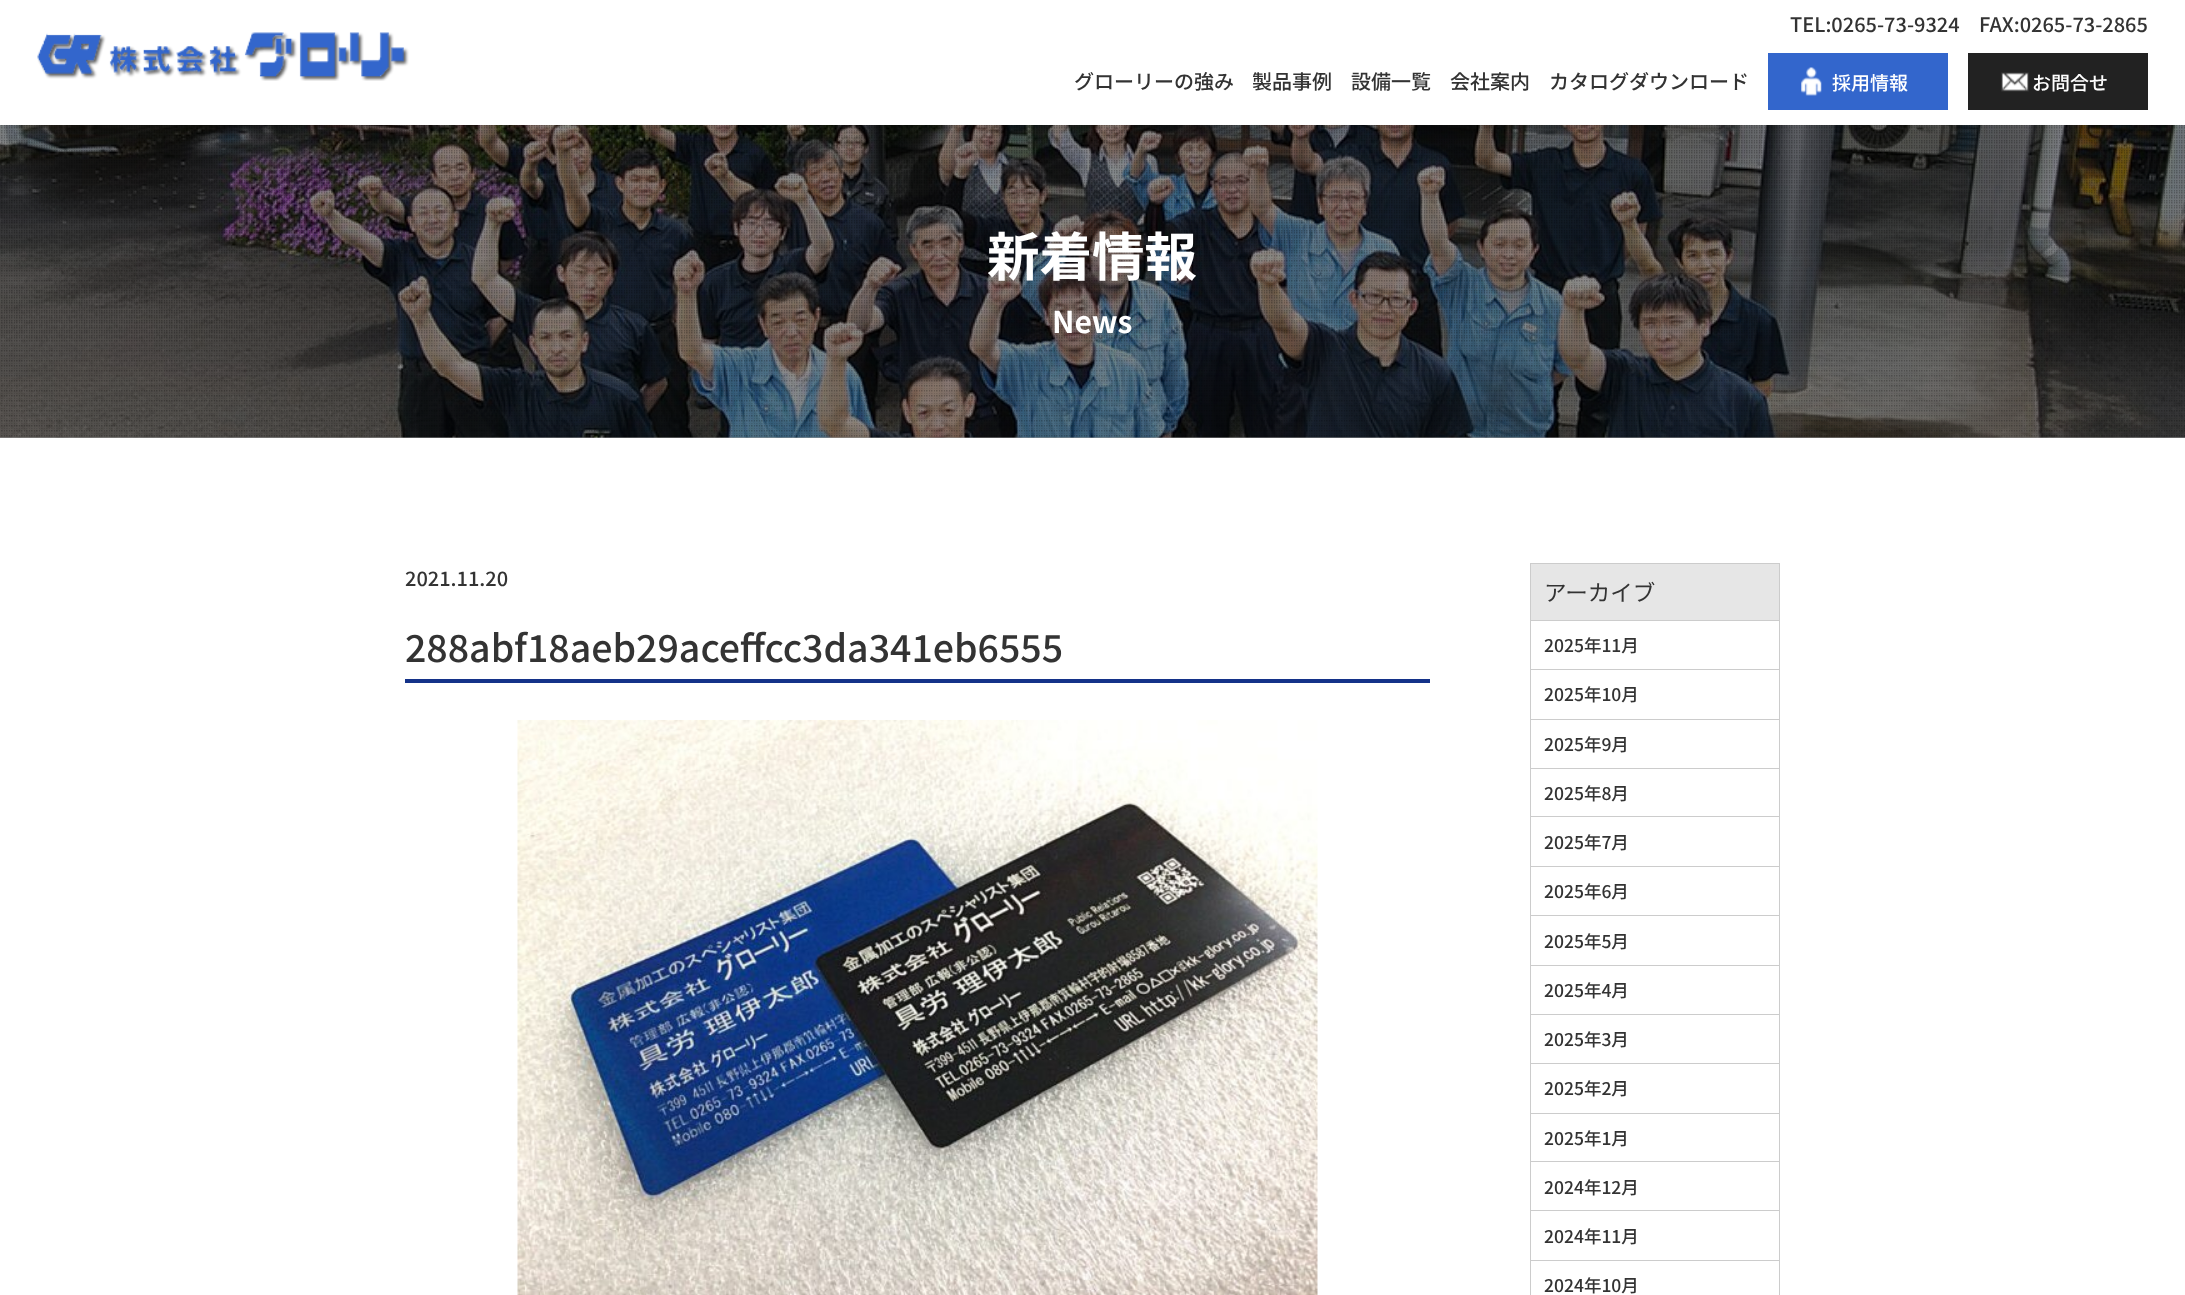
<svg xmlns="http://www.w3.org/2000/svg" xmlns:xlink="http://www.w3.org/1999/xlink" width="2185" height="1295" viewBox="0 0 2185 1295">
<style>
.cls-1{font:500 20px Noto Sans JP;fill:#333333}
.cls-2{font:500 19px Noto Sans JP;fill:#ffffff}
.cls-3{font:bold 52.5px Noto Sans JP;fill:#ffffff}
.cls-4{font:bold 30px Noto Sans JP;fill:#ffffff}
.cls-5{font:500 37.5px Noto Sans JP;fill:#333333}
.cls-6{font:22.5px Noto Sans JP;fill:#333333}
.cls-7{font:500 17.5px Noto Sans JP;fill:#333333}
</style>
<rect width="100%" height="100%" fill="#ffffff"/>
<rect fill="#999999" x="0" y="437" width="2185" height="1"/>
<image xlink:href="image0.png" x="37" y="32" width="372" height="49"/>
<rect fill="#3366cc" x="1768" y="53" width="180" height="57"/>
<image xlink:href="image1.png" x="1801" y="67" width="21" height="29"/>
<rect fill="#222222" x="1968" y="53" width="180" height="57"/>
<image xlink:href="image2.png" x="2001" y="72" width="28" height="20"/>
<image xlink:href="image3.png" x="0" y="125" width="2185" height="313"/>
<image xlink:href="image4.png" x="0" y="125" width="2185" height="313"/>
<rect fill="#143289" x="405" y="679" width="1025" height="4"/>
<image xlink:href="image5.png" x="517" y="720" width="801" height="575"/>
<rect fill="#e6e6e6" stroke="#cccccc" x="1530.5" y="563.5" width="249" height="57"/>
<rect fill="#cccccc" x="1779" y="621" width="1" height="674"/>
<rect fill="#cccccc" x="1530" y="621" width="1" height="674"/>
<rect fill="#cccccc" x="1531" y="669" width="248" height="1"/>
<rect fill="#cccccc" x="1531" y="719" width="248" height="1"/>
<rect fill="#cccccc" x="1531" y="768" width="248" height="1"/>
<rect fill="#cccccc" x="1531" y="816" width="248" height="1"/>
<rect fill="#cccccc" x="1531" y="866" width="248" height="1"/>
<rect fill="#cccccc" x="1531" y="915" width="248" height="1"/>
<rect fill="#cccccc" x="1531" y="965" width="248" height="1"/>
<rect fill="#cccccc" x="1531" y="1014" width="248" height="1"/>
<rect fill="#cccccc" x="1531" y="1063" width="248" height="1"/>
<rect fill="#cccccc" x="1531" y="1113" width="248" height="1"/>
<rect fill="#cccccc" x="1531" y="1161" width="248" height="1"/>
<rect fill="#cccccc" x="1531" y="1210" width="248" height="1"/>
<rect fill="#cccccc" x="1531" y="1260" width="248" height="1"/>
<text class="cls-1" x="1790" y="32">TEL:0265-73-9324</text>
<text class="cls-1" x="1979" y="32">FAX:0265-73-2865</text>
<text class="cls-1" x="1074" y="89">グローリーの強み</text>
<text class="cls-1" x="1252" y="89">製品事例</text>
<text class="cls-1" x="1351" y="89">設備一覧</text>
<text class="cls-1" x="1450" y="89">会社案内</text>
<text class="cls-1" x="1549" y="89">カタログダウンロード</text>
<text class="cls-2" x="1832" y="90">採用情報</text>
<text class="cls-2" x="2032" y="90">お問合せ</text>
<text class="cls-3" x="987" y="276">新着情報</text>
<text class="cls-4" x="1052" y="333">News</text>
<text class="cls-1" x="405" y="586">2021.11.20</text>
<text class="cls-5" x="405" y="662">288abf18aeb29aceffcc3da341eb6555</text>
<text class="cls-6" x="1544" y="601">アーカイブ</text>
<text class="cls-7" x="1544" y="652">2025年11月</text>
<text class="cls-7" x="1544" y="701">2025年10月</text>
<text class="cls-7" x="1544" y="751">2025年9月</text>
<text class="cls-7" x="1544" y="800">2025年8月</text>
<text class="cls-7" x="1544" y="849">2025年7月</text>
<text class="cls-7" x="1544" y="898">2025年6月</text>
<text class="cls-7" x="1544" y="948">2025年5月</text>
<text class="cls-7" x="1544" y="997">2025年4月</text>
<text class="cls-7" x="1544" y="1046">2025年3月</text>
<text class="cls-7" x="1544" y="1095">2025年2月</text>
<text class="cls-7" x="1544" y="1145">2025年1月</text>
<text class="cls-7" x="1544" y="1194">2024年12月</text>
<text class="cls-7" x="1544" y="1243">2024年11月</text>
<text class="cls-7" x="1544" y="1292">2024年10月</text>
</svg>
